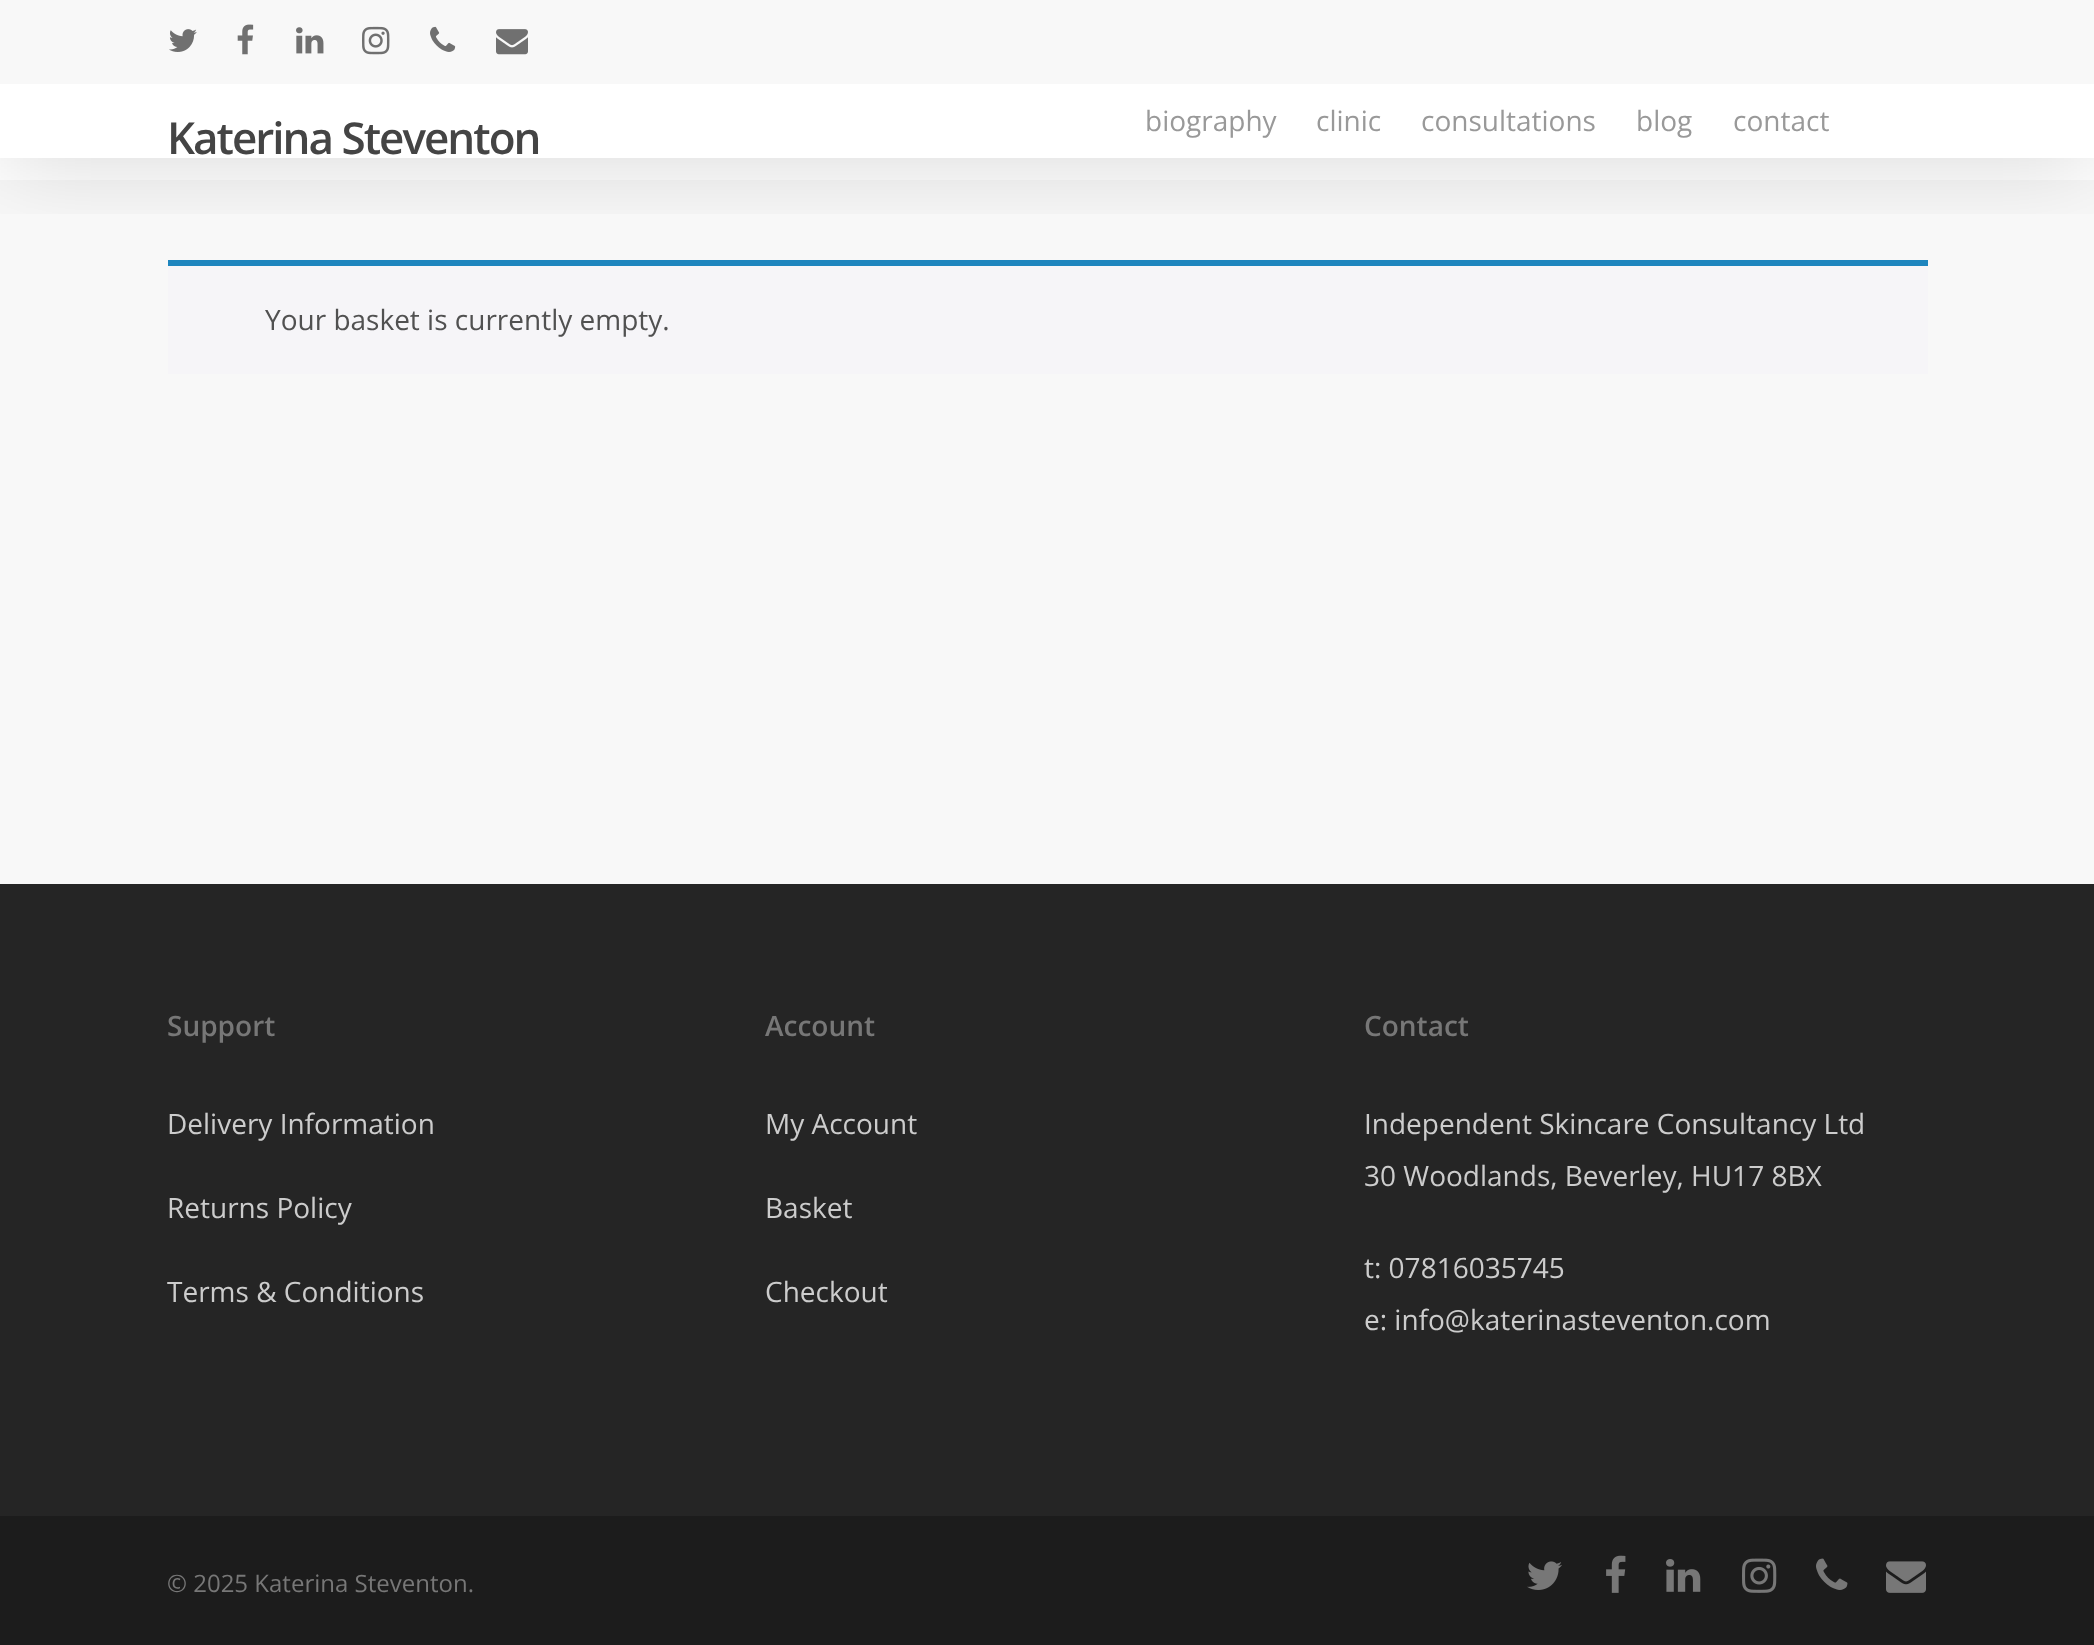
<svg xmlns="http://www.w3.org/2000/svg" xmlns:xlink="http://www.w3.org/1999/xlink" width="2094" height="1645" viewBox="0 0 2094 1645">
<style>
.cls-1{font:600 44px Open Sans;letter-spacing:-2px;fill:#444444}
.cls-2{font:28px Open Sans;fill:#999999}
.cls-3{font:28px Open Sans;fill:#515151}
.cls-4{font:600 28px Open Sans;fill:#777777}
.cls-5{font:28px Open Sans;fill:#cccccc}
.cls-6{font:24px Open Sans;fill:#777777}
</style>
<defs>
<clipPath id="clip1"><rect x="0" y="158" width="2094" height="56"/></clipPath>
</defs>
<rect width="100%" height="100%" fill="#ffffff"/>
<rect fill="#f8f8f8" x="0" y="180" width="2094" height="704"/>
<rect fill="#f6f5f8" x="168" y="266" width="1760" height="108"/>
<rect fill="#1e85be" x="168" y="260" width="1760" height="6"/>
<g clip-path="url(#clip1)">
<rect fill="#000000" fill-opacity="0.15" filter="blur(45px)" x="0" y="6" width="2094" height="158"/>
</g>
<rect fill="#f8f8f8" x="0" y="0" width="2094" height="84"/>
<image xlink:href="image0.png" x="169" y="29" width="28" height="23"/>
<image xlink:href="image1.png" x="237" y="24" width="17" height="31"/>
<image xlink:href="image2.png" x="296" y="27" width="28" height="27"/>
<image xlink:href="image3.png" x="362" y="26" width="28" height="29"/>
<image xlink:href="image4.png" x="430" y="26" width="26" height="26"/>
<image xlink:href="image5.png" x="496" y="29" width="32" height="26"/>
<rect fill="#252525" x="0" y="884" width="2094" height="632"/>
<rect fill="#1c1c1c" x="0" y="1516" width="2094" height="129"/>
<image xlink:href="image6.png" x="1527" y="1561" width="35" height="29"/>
<image xlink:href="image7.png" x="1606" y="1555" width="20" height="38"/>
<image xlink:href="image8.png" x="1666" y="1559" width="35" height="33"/>
<image xlink:href="image9.png" x="1742" y="1558" width="35" height="35"/>
<image xlink:href="image10.png" x="1816" y="1558" width="32" height="32"/>
<image xlink:href="image11.png" x="1886" y="1561" width="40" height="32"/>
<text class="cls-1" x="167" y="154">Katerina Steventon</text>
<text class="cls-2" x="1145" y="131">biography</text>
<text class="cls-2" x="1316" y="131">clinic</text>
<text class="cls-2" x="1421" y="131">consultations</text>
<text class="cls-2" x="1636" y="131">blog</text>
<text class="cls-2" x="1733" y="131">contact</text>
<text class="cls-3" x="265" y="330">Your basket is currently empty.</text>
<text class="cls-4" x="167" y="1036">Support</text>
<text class="cls-5" x="167" y="1134">Delivery Information</text>
<text class="cls-5" x="167" y="1218">Returns Policy</text>
<text class="cls-5" x="167" y="1302">Terms &amp; Conditions</text>
<text class="cls-4" x="765" y="1036">Account</text>
<text class="cls-5" x="765" y="1134">My Account</text>
<text class="cls-5" x="765" y="1218">Basket</text>
<text class="cls-5" x="765" y="1302">Checkout</text>
<text class="cls-4" x="1364" y="1036">Contact</text>
<text class="cls-5"><tspan x="1364" y="1134">Independent Skincare Consultancy Ltd</tspan><tspan x="1364" y="1186">30 Woodlands, Beverley, HU17 8BX</tspan></text>
<text class="cls-5"><tspan x="1364" y="1278">t: 07816035745</tspan><tspan x="1364" y="1330">e: info@katerinasteventon.com</tspan></text>
<text class="cls-6" x="167" y="1592">© 2025 Katerina Steventon.</text>
</svg>
